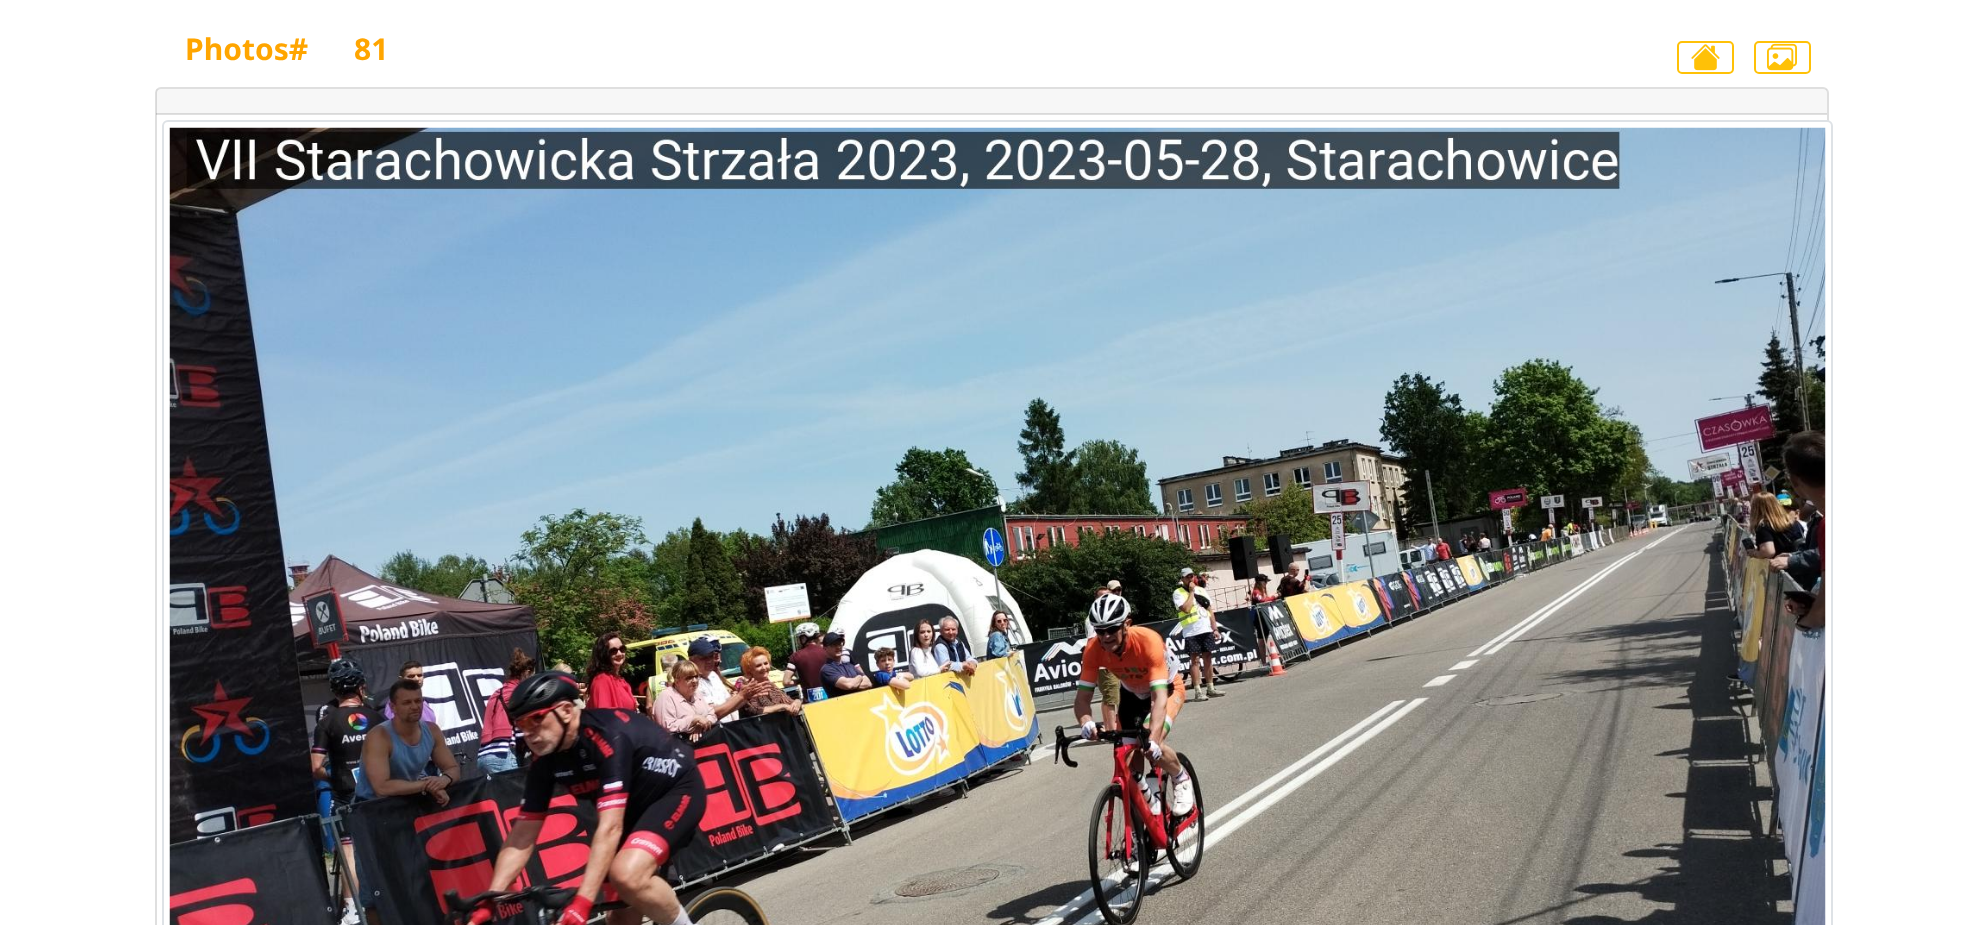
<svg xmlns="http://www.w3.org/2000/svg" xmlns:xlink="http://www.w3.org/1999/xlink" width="1981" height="925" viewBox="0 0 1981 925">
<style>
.cls-1{font:bold 30px Noto Sans;fill:#ffa500}
</style>
<rect width="100%" height="100%" fill="#ffffff"/>
<rect fill="none" stroke="#ffc107" stroke-width="2" x="1678" y="42" width="55" height="31" rx="4"/>
<image xlink:href="image0.png" x="1691" y="44" width="29" height="27"/>
<rect fill="none" stroke="#ffc107" stroke-width="2" x="1755" y="42" width="55" height="31" rx="4"/>
<image xlink:href="image1.png" x="1767" y="43" width="30" height="28"/>
<rect fill="none" stroke="#dfdfdf" stroke-width="2" x="156" y="88" width="1672" height="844" rx="5"/>
<rect fill="#000000" fill-opacity="0.03" x="156" y="89" width="1671" height="25"/>
<rect fill="#000000" fill-opacity="0.12" x="156" y="113" width="1671" height="2"/>
<rect fill="#ffffff" stroke="#dee2e6" stroke-width="2" x="163" y="121" width="1669" height="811" rx="5"/>
<image xlink:href="image2.png" x="169" y="127" width="1657" height="798"/>
<text class="cls-1" x="185" y="60">Photos#</text>
<text class="cls-1" x="354" y="60">81</text>
</svg>
